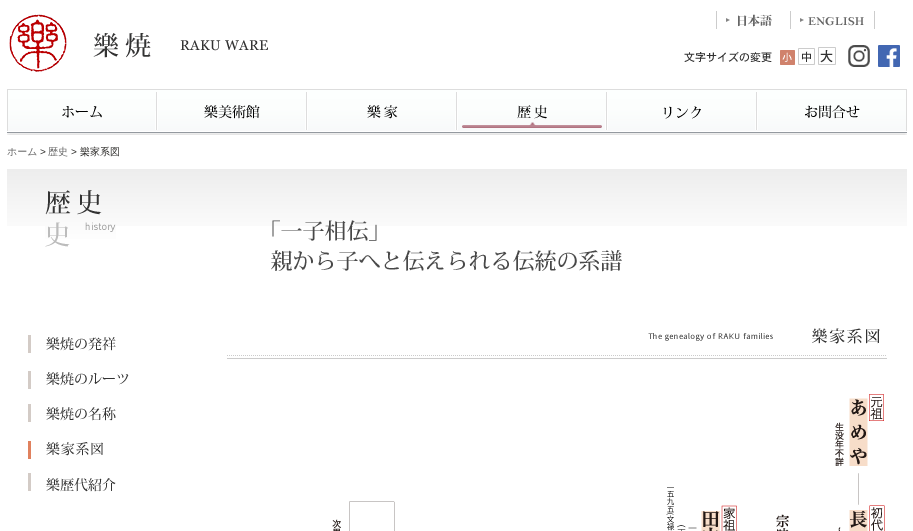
<svg xmlns="http://www.w3.org/2000/svg" xmlns:xlink="http://www.w3.org/1999/xlink" width="913" height="531" viewBox="0 0 913 531">
<style>
.cls-1{font:500 10px WenQuanYi Zen Hei;fill:#666666}
.cls-2{font:10px Liberation Sans;fill:#2f2e2c}
.cls-3{font:500 10px WenQuanYi Zen Hei;fill:#2f2e2c}
</style>
<rect width="100%" height="100%" fill="#ffffff"/>
<image xlink:href="image0.png" x="9" y="14" width="259" height="58"/>
<image xlink:href="image1.png" x="716" y="11" width="56" height="18"/>
<image xlink:href="image2.png" x="790" y="11" width="85" height="18"/>
<image xlink:href="image3.png" x="684" y="51" width="88" height="12"/>
<image xlink:href="image4.png" x="780" y="50" width="15" height="15"/>
<image xlink:href="image5.png" x="798" y="48" width="17" height="17"/>
<image xlink:href="image6.png" x="818" y="47" width="18" height="18"/>
<image xlink:href="image7.png" x="848" y="45" width="22" height="22"/>
<image xlink:href="image8.png" x="878" y="45" width="22" height="22"/>
<image xlink:href="image9.png" x="7" y="89" width="900" height="46"/>
<rect fill="#efefef" x="100" y="117" width="1" height="1"/>
<image xlink:href="image10.png" x="213" y="116" width="38" height="3"/>
<image xlink:href="image11.png" x="376" y="116" width="22" height="3"/>
<image xlink:href="image12.png" x="667" y="116" width="14" height="2"/>
<image xlink:href="image13.png" x="807" y="116" width="36" height="3"/>
<image xlink:href="image14.png" x="517" y="118" width="30" height="1"/>
<image xlink:href="image15.png" x="462" y="122" width="140" height="6"/>
<image xlink:href="image16.png" x="7" y="169" width="900" height="57"/>
<image xlink:href="image17.png" x="45" y="190" width="71" height="57"/>
<image xlink:href="image18.png" x="28" y="335" width="88" height="18"/>
<image xlink:href="image19.png" x="28" y="371" width="101" height="18"/>
<image xlink:href="image20.png" x="28" y="404" width="88" height="18"/>
<image xlink:href="image21.png" x="31" y="441" width="72" height="18"/>
<rect fill="#e0815e" x="28" y="441" width="3" height="18"/>
<image xlink:href="image22.png" x="28" y="473" width="88" height="19"/>
<image xlink:href="image23.png" x="271" y="220" width="351" height="52"/>
<image xlink:href="image24.png" x="227" y="328" width="660" height="31"/>
<image xlink:href="image25.png" x="332" y="394" width="553" height="137"/>
<text class="cls-1" x="7" y="155">ホーム</text>
<text class="cls-2" x="40" y="155">&gt;</text>
<text class="cls-1" x="48" y="155">歴史</text>
<text class="cls-2" x="71" y="155">&gt;</text>
<text class="cls-3" x="80" y="155">樂家系図</text>
</svg>
